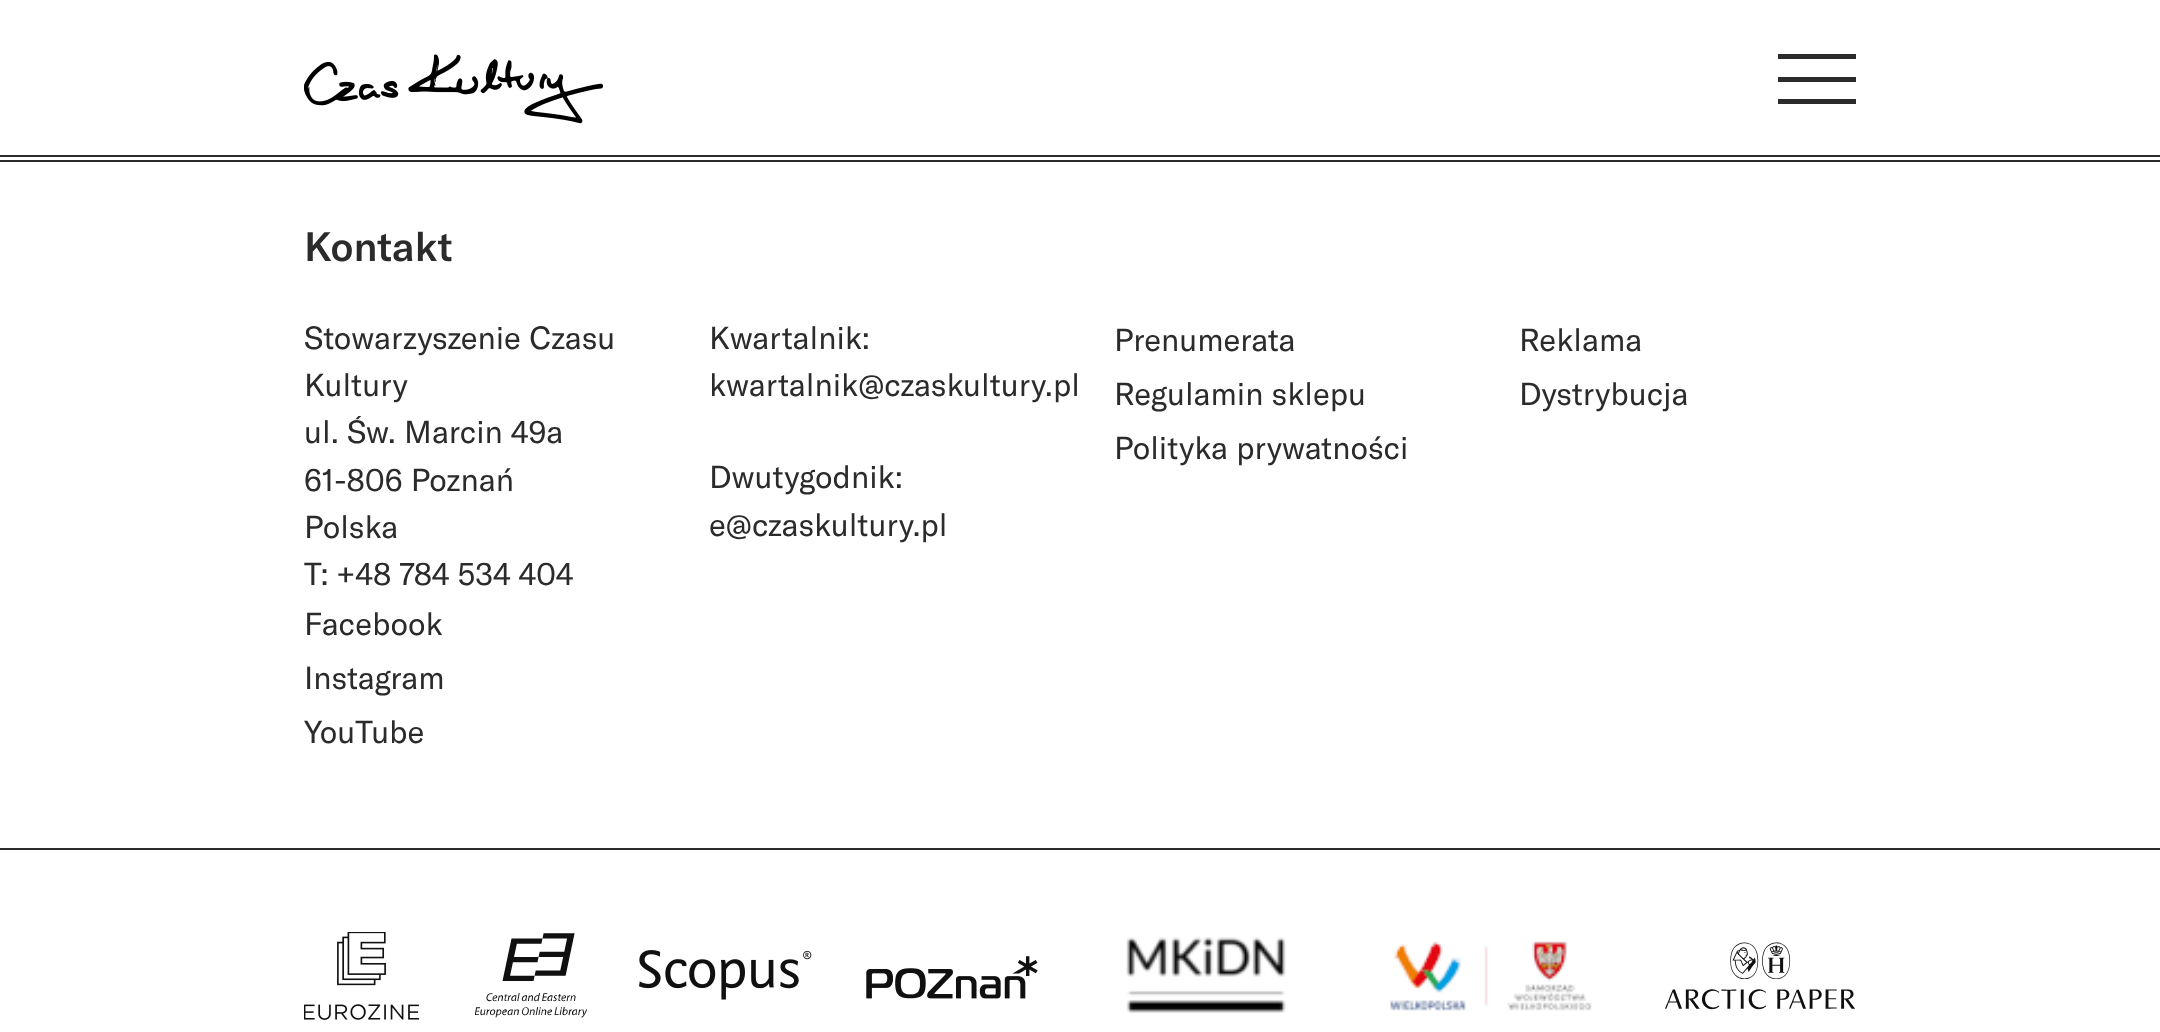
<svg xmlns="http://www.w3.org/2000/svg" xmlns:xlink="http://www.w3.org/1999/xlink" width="2160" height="1032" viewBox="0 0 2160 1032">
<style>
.cls-1{font:500 40.5px GT America;fill:#2b2b2b}
.cls-2{font:31.5px GT America;fill:#2b2b2b}
</style>
<rect width="100%" height="100%" fill="#ffffff"/>
<rect fill="#2b2b2b" x="0" y="155" width="2160" height="2"/>
<image xlink:href="image0.png" x="304" y="54" width="299" height="70"/>
<rect fill="#2b2b2b" x="1778" y="54" width="78" height="5"/>
<rect fill="#2b2b2b" x="1778" y="77" width="78" height="5"/>
<rect fill="#2b2b2b" x="1778" y="99" width="78" height="5"/>
<rect fill="#2b2b2b" x="0" y="160" width="2160" height="2"/>
<rect fill="#2b2b2b" x="0" y="848" width="2160" height="2"/>
<image xlink:href="image1.png" x="304" y="932" width="116" height="88"/>
<image xlink:href="image2.png" x="475" y="933" width="112" height="85"/>
<image xlink:href="image3.png" x="639" y="950" width="173" height="50"/>
<image xlink:href="image4.png" x="866" y="956" width="172" height="43"/>
<image xlink:href="image5.png" x="1126" y="937" width="160" height="76"/>
<image xlink:href="image6.png" x="1390" y="941" width="202" height="70"/>
<image xlink:href="image7.png" x="1665" y="942" width="190" height="68"/>
<text class="cls-1" x="304" y="261">Kontakt</text>
<text class="cls-2"><tspan x="304" y="349">Stowarzyszenie Czasu</tspan><tspan x="304" y="396">Kultury</tspan><tspan x="304" y="443">ul. Św. Marcin 49a</tspan><tspan x="304" y="491">61-806 Poznań</tspan><tspan x="304" y="538">Polska</tspan><tspan x="304" y="585">T: +48 784 534 404</tspan></text>
<text class="cls-2"><tspan x="709" y="349">Kwartalnik:</tspan><tspan x="709" y="396">kwartalnik@czaskultury.pl</tspan></text>
<text class="cls-2"><tspan x="709" y="488">Dwutygodnik:</tspan><tspan x="709" y="536">e@czaskultury.pl</tspan></text>
<text class="cls-2"><tspan x="1114" y="351">Prenumerata</tspan><tspan x="1114" y="405">Regulamin sklepu</tspan><tspan x="1114" y="459">Polityka prywatności</tspan></text>
<text class="cls-2"><tspan x="1519" y="351">Reklama</tspan><tspan x="1519" y="405">Dystrybucja</tspan></text>
<text class="cls-2"><tspan x="304" y="635">Facebook</tspan><tspan x="304" y="689">Instagram</tspan><tspan x="304" y="743">YouTube</tspan></text>
</svg>
